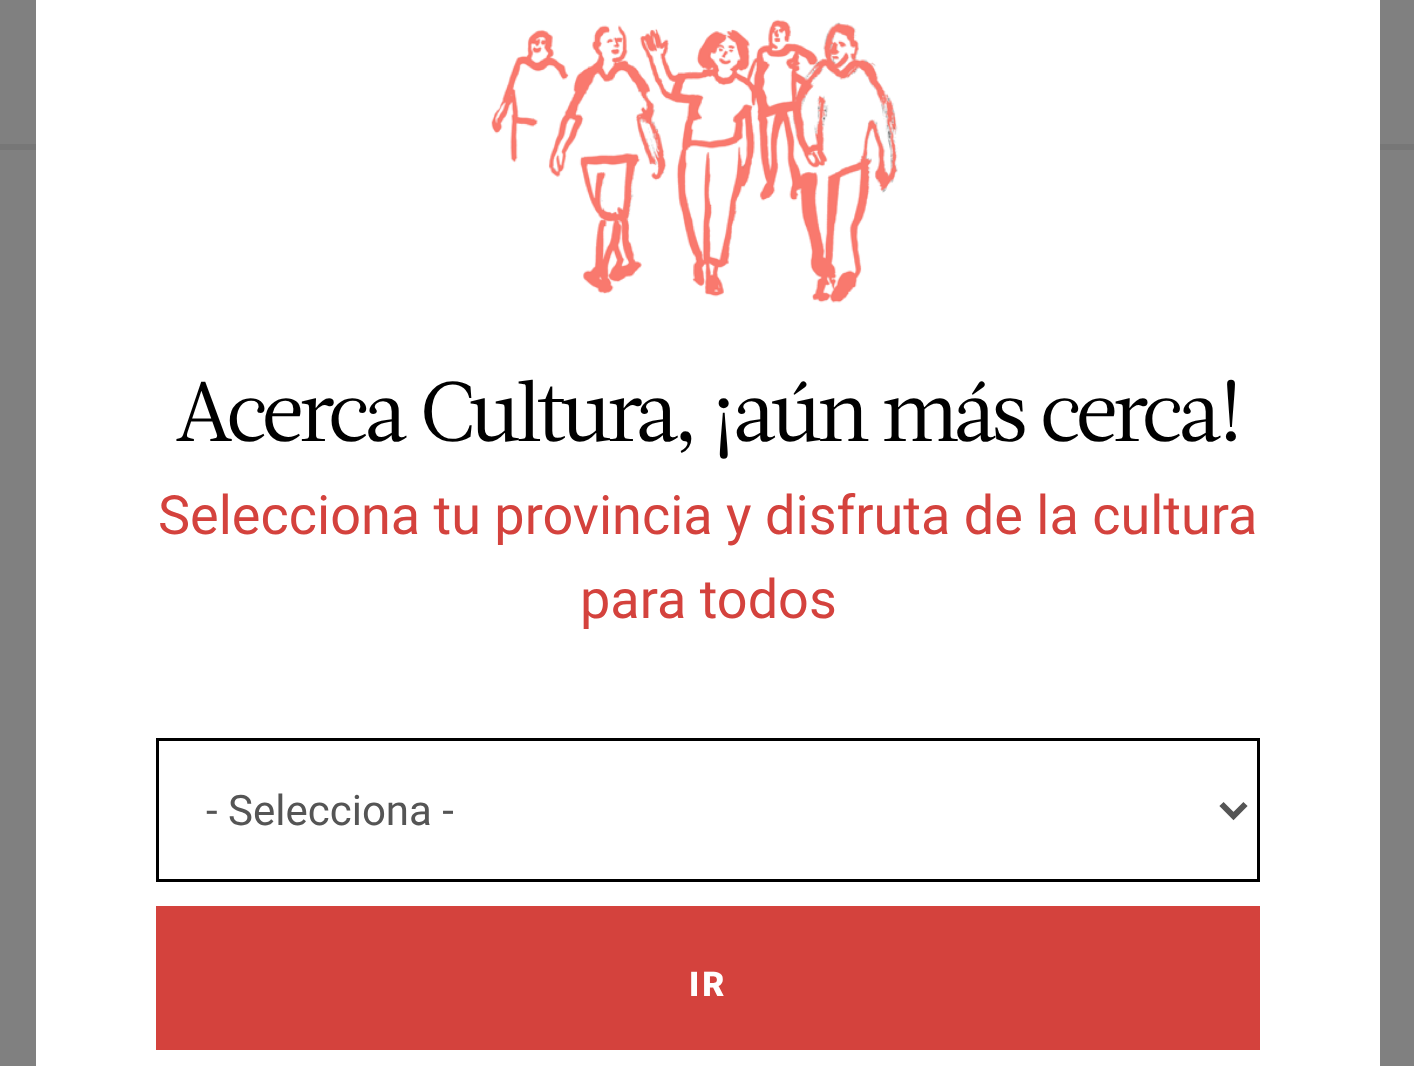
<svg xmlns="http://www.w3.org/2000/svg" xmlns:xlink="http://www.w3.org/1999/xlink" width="1414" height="1066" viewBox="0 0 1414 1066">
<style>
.cls-1{font:84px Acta;letter-spacing:-3.45px;fill:#000000}
.cls-2{font:54px Roboto;fill:#d4423d}
.cls-3{font:42px Roboto;fill:#555555}
.cls-4{font:900 34px Roboto;letter-spacing:3px;fill:#ffffff}
</style>
<rect width="100%" height="100%" fill="#808080"/>
<rect fill="#777777" x="0" y="144" width="1414" height="6"/>
<rect fill="#ffffff" x="36" y="0" width="1344" height="1066"/>
<image xlink:href="image0.png" x="491" y="19" width="407" height="284"/>
<rect fill="none" stroke="#000000" stroke-width="3" x="157.5" y="739.5" width="1101" height="141"/>
<path fill="none" stroke="#555555" stroke-width="6" d="M1221.5 804L1233.5 816L1245.5 804"/>
<rect fill="#d4423d" x="156" y="906" width="1104" height="144"/>
<text class="cls-1" x="175" y="441">Acerca Cultura, ¡aún más cerca!</text>
<text class="cls-2" x="158" y="534">Selecciona tu provincia y disfruta de la cultura</text>
<text class="cls-2" x="580" y="618">para todos</text>
<text class="cls-3" x="206" y="825">- Selecciona -</text>
<text class="cls-4" x="689" y="996">IR</text>
</svg>
